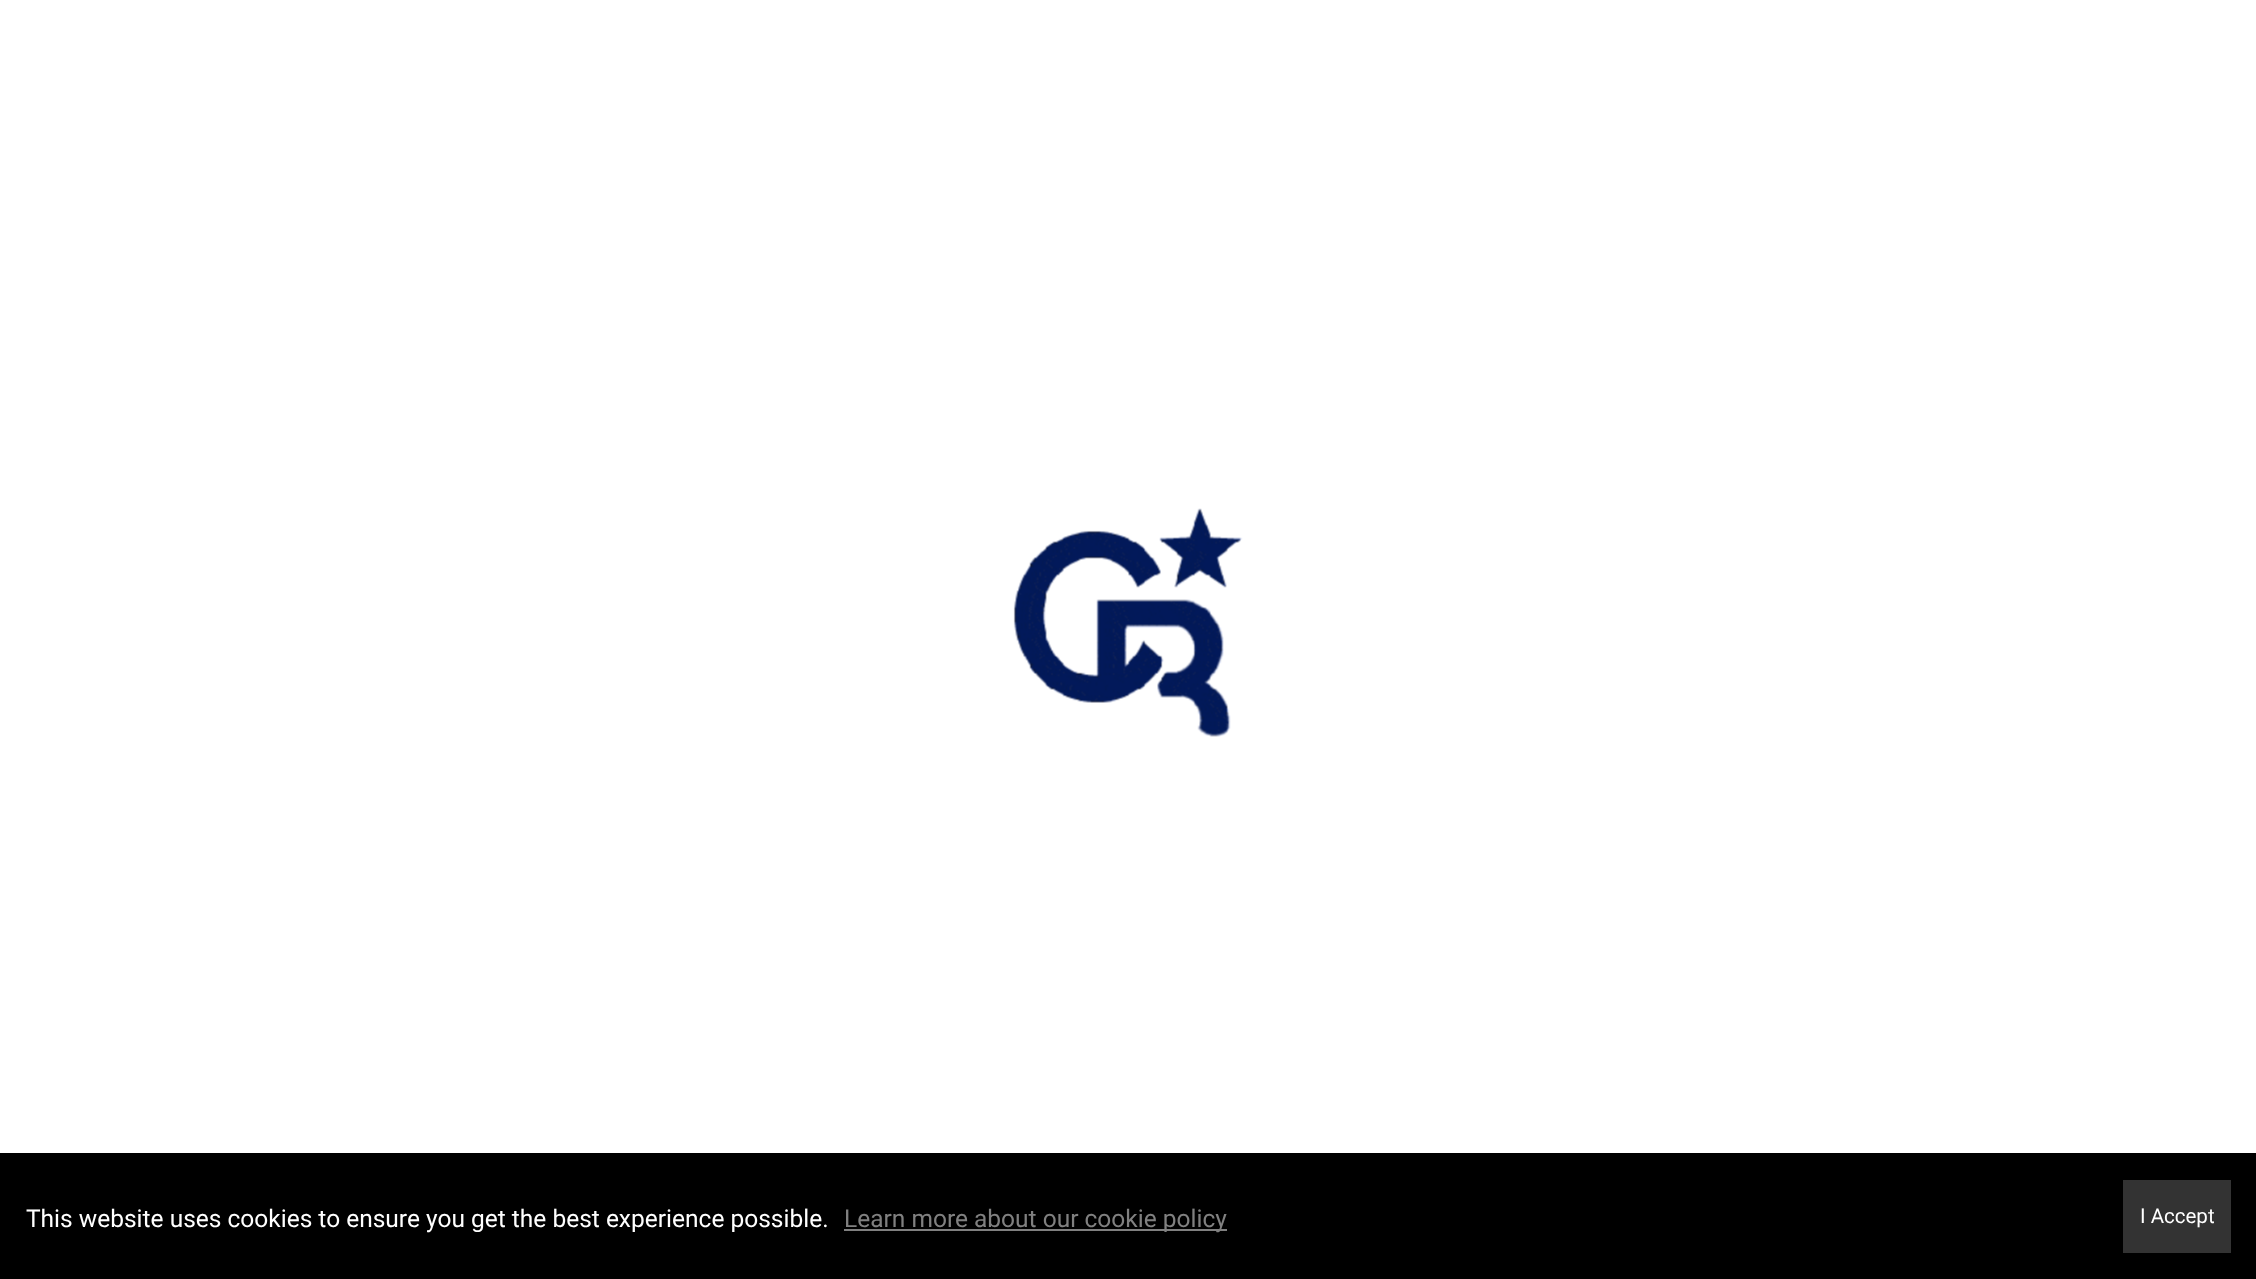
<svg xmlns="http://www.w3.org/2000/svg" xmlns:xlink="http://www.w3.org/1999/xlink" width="2256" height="1279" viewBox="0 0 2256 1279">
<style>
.cls-1{font:24.5px Roboto;fill:#ffffff}
.cls-2{font:24.5px Roboto;fill:#808080}
.cls-3{font:20.5px Roboto;fill:#ffffff}
</style>
<rect width="100%" height="100%" fill="#ffffff"/>
<image xlink:href="image0.png" x="1013" y="508" width="230" height="229"/>
<rect fill="#000000" x="0" y="1153" width="2256" height="126"/>
<rect fill="#808080" x="844" y="1229" width="383" height="2"/>
<rect fill="#333333" x="2123" y="1180" width="108" height="73"/>
<text class="cls-1" x="26" y="1227">This website uses cookies to ensure you get the best experience possible.</text>
<text class="cls-2" x="844" y="1227">Learn more about our cookie policy</text>
<text class="cls-3" x="2140" y="1223">I Accept</text>
</svg>
